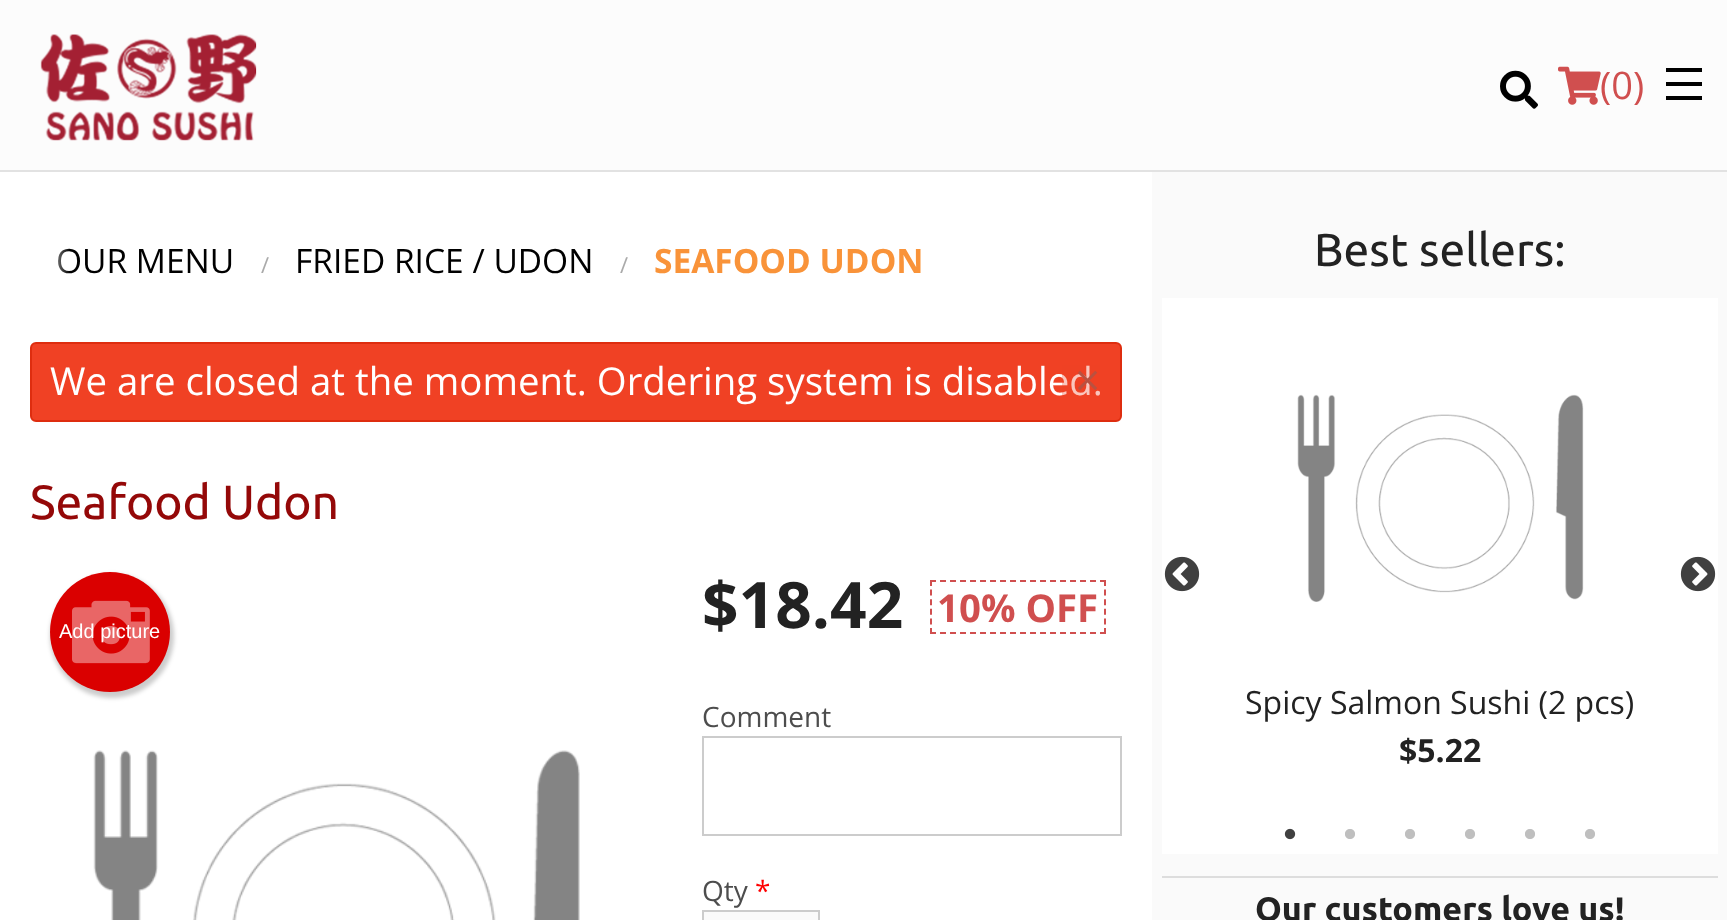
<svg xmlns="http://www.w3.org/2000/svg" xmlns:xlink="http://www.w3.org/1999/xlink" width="1727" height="920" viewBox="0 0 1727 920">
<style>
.cls-1{font:38px Open Sans;fill:#d04f4f}
.cls-2{font:33.5px Open Sans;fill:#000000}
.cls-3{font:22px Open Sans;fill:#aaaaaa}
.cls-4{font:bold 33.5px Open Sans;fill:#f99339}
.cls-5{font:38.4px Open Sans;fill:#ffffff}
.cls-6{font:44px Open Sans;fill:#b95140}
.cls-7{font:48px Ubuntu;fill:#940808}
.cls-8{font:20px Liberation Sans;fill:#ffffff}
.cls-9{font:bold 64px Open Sans;fill:#222222}
.cls-10{font:bold 38.4px Open Sans;fill:#d04f4f}
.cls-11{font:28px Open Sans;fill:#4d4d4d}
.cls-12{font:28px Open Sans;fill:#ff0000}
.cls-13{font:46px Ubuntu;fill:#222222}
.cls-14{font:32px Open Sans;fill:#222222}
.cls-15{font:bold 32px Open Sans;fill:#222222}
.cls-16{font:bold 34px Ubuntu;fill:#222222}
</style>
<defs>
<linearGradient id="g1" gradientUnits="userSpaceOnUse" x1="70" y1="252" x2="0" y2="252"><stop offset="0" stop-color="#ffffff" stop-opacity="0"/><stop offset="0.43" stop-color="#ffffff"/><stop offset="1" stop-color="#ffffff"/></linearGradient>
</defs>
<rect width="100%" height="100%" fill="#ffffff"/>
<rect fill="#fcfcfc" x="0" y="0" width="1727" height="170"/>
<rect fill="#e2e2e2" x="0" y="170" width="1727" height="2"/>
<image xlink:href="image0.png" x="40" y="34" width="217" height="107"/>
<image xlink:href="image1.png" x="1500" y="70" width="38" height="39"/>
<image xlink:href="image2.png" x="1558" y="66" width="43" height="39"/>
<rect fill="#000000" x="1666" y="96" width="36" height="4"/>
<rect fill="#000000" x="1666" y="82" width="36" height="4"/>
<rect fill="#000000" x="1666" y="68" width="36" height="4"/>
<rect fill="#f04124" stroke="#de2d0f" stroke-width="2" x="31" y="343" width="1090" height="78" rx="5"/>
<rect fill="#000000" fill-opacity="0.2" filter="blur(2px)" x="50" y="574" width="124" height="124" rx="62"/>
<circle fill="#da0000" cx="110" cy="632" r="60"/>
<image xlink:href="image3.png" x="72" y="600" width="78" height="64"/>
<image xlink:href="image4.png" x="93" y="750" width="487" height="170"/>
<path fill="none" stroke="#d04f4f" stroke-width="2" stroke-dasharray="6 4" d="M930 581H1106"/>
<path fill="none" stroke="#d04f4f" stroke-width="2" stroke-dasharray="6 3.6" d="M1105 580V634"/>
<path fill="none" stroke="#d04f4f" stroke-width="2" stroke-dasharray="6 4" d="M930 633H1106"/>
<path fill="none" stroke="#d04f4f" stroke-width="2" stroke-dasharray="6 3.6" d="M931 580V634"/>
<rect fill="none" stroke="#cccccc" stroke-width="2" x="703" y="737" width="418" height="98"/>
<rect fill="#fafafa" stroke="#cccccc" stroke-width="2" x="703" y="911" width="116" height="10"/>
<rect fill="#fafafa" x="1152" y="172" width="575" height="748"/>
<rect fill="#ffffff" x="1162" y="298" width="556" height="556"/>
<image xlink:href="image5.png" x="1164" y="556" width="36" height="36"/>
<image xlink:href="image6.png" x="1680" y="556" width="36" height="36"/>
<image xlink:href="image7.png" x="1297" y="394" width="287" height="208"/>
<image xlink:href="image8.png" x="1284" y="828" width="12" height="12"/>
<image xlink:href="image9.png" x="1345" y="829" width="10" height="10"/>
<image xlink:href="image9.png" x="1405" y="829" width="10" height="10"/>
<image xlink:href="image9.png" x="1465" y="829" width="10" height="10"/>
<image xlink:href="image9.png" x="1525" y="829" width="10" height="10"/>
<image xlink:href="image9.png" x="1585" y="829" width="10" height="10"/>
<rect fill="#dddddd" x="1162" y="876" width="556" height="2"/>
<text class="cls-1" x="1600" y="99">(0)</text>
<text class="cls-2" x="56" y="273">OUR MENU</text>
<rect fill="url(#g1)" x="58" y="248" width="11" height="26"/>
<text class="cls-3" x="261" y="273">/</text>
<text class="cls-2" x="295" y="273">FRIED RICE / UDON</text>
<text class="cls-3" x="620" y="273">/</text>
<text class="cls-4" x="654" y="273">SEAFOOD UDON</text>
<text class="cls-5" x="50" y="395">We are closed at the moment. Ordering system is disabled.</text>
<rect fill="#f04124" fill-opacity="0.3" x="1062" y="365" width="38" height="31"/>
<text class="cls-6" x="1075" y="396">×</text>
<text class="cls-7" x="30" y="519">Seafood Udon</text>
<text class="cls-8" x="59" y="638">Add picture</text>
<text class="cls-9" x="702" y="628">$18.42</text>
<text class="cls-10" x="937" y="622">10% OFF</text>
<text class="cls-11" x="702" y="727">Comment</text>
<text class="cls-11" x="702" y="901">Qty</text>
<text class="cls-12" x="755" y="901">*</text>
<text class="cls-13" x="1314" y="266">Best sellers:</text>
<text class="cls-14" x="1245" y="714">Spicy Salmon Sushi (2 pcs)</text>
<text class="cls-15" x="1399" y="762">$5.22</text>
<text class="cls-16" x="1255" y="921">Our customers love us!</text>
</svg>
